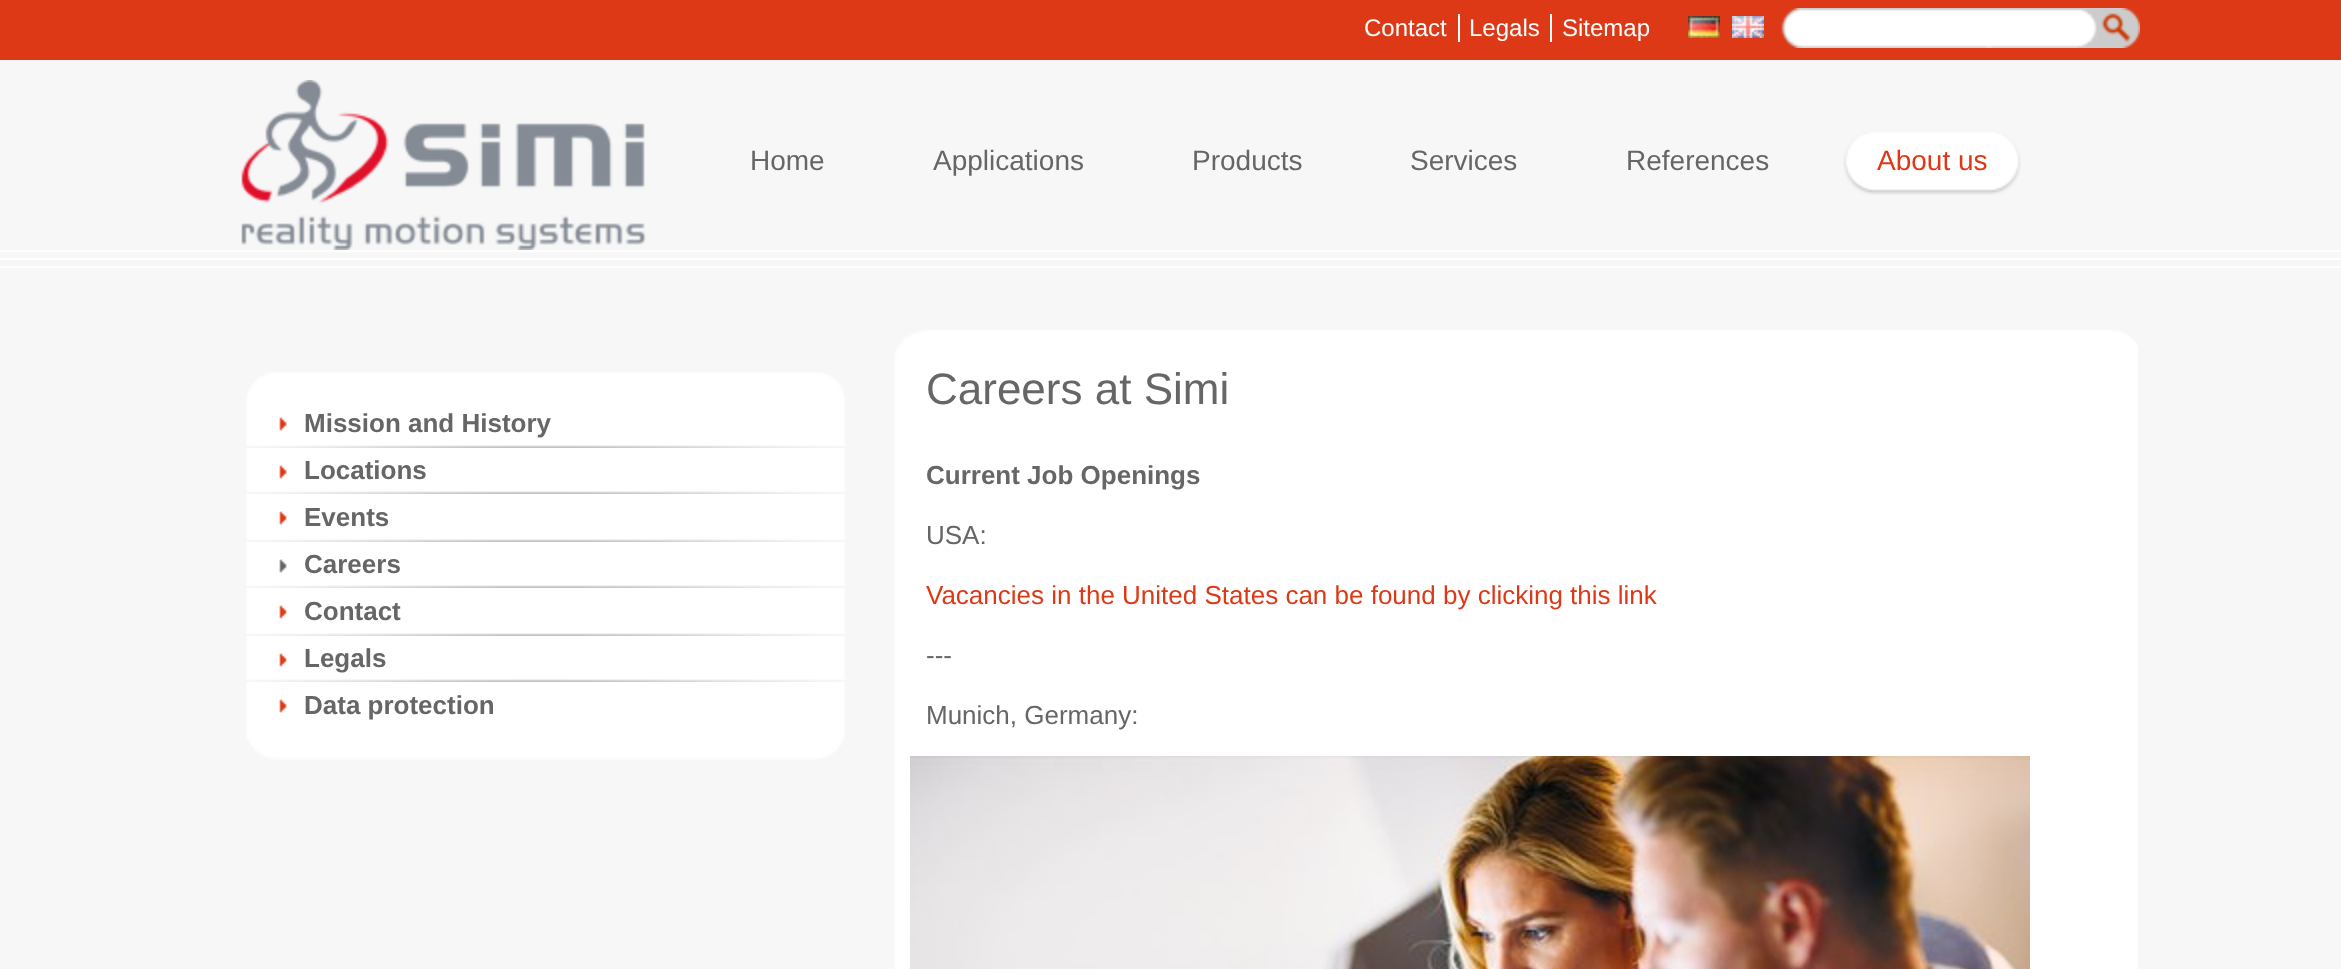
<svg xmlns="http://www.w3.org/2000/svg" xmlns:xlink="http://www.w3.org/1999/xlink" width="2341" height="969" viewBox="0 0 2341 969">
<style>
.cls-1{font:24px Liberation Sans;fill:#ffffff}
.cls-2{font:28px Liberation Sans;fill:#666666}
.cls-3{font:28px Liberation Sans;fill:#dd3916}
.cls-4{font:bold 26px Liberation Sans;fill:#666666}
.cls-5{font:44px Liberation Sans;fill:#666666}
.cls-6{font:26px Liberation Sans;fill:#666666}
.cls-7{font:26px Liberation Sans;fill:#dd3916}
</style>
<rect width="100%" height="100%" fill="#f7f7f7"/>
<rect fill="#dd3916" x="0" y="0" width="2341" height="60"/>
<rect fill="#ffffff" x="1458" y="14" width="2" height="28"/>
<rect fill="#ffffff" x="1550" y="14" width="2" height="28"/>
<image xlink:href="image0.png" x="1688" y="16" width="32" height="22"/>
<image xlink:href="image1.png" x="1732" y="16" width="32" height="22"/>
<image xlink:href="image2.png" x="1781" y="8" width="359" height="40"/>
<image xlink:href="image3.png" x="0" y="250" width="2341" height="10"/>
<image xlink:href="image4.png" x="241" y="80" width="405" height="170"/>
<image xlink:href="image5.png" x="1872" y="132" width="149" height="63"/>
<image xlink:href="image6.png" x="1842" y="132" width="30" height="63"/>
<rect fill="#fdfdfd" x="0" y="266" width="2341" height="2"/>
<image xlink:href="image7.png" x="246" y="372" width="599" height="366"/>
<image xlink:href="image8.png" x="246" y="444" width="600" height="4"/>
<image xlink:href="image9.png" x="279" y="417" width="8" height="14"/>
<image xlink:href="image8.png" x="246" y="490" width="600" height="4"/>
<image xlink:href="image9.png" x="279" y="465" width="8" height="14"/>
<image xlink:href="image8.png" x="246" y="538" width="600" height="4"/>
<image xlink:href="image9.png" x="279" y="511" width="8" height="14"/>
<image xlink:href="image8.png" x="246" y="584" width="600" height="4"/>
<image xlink:href="image10.png" x="279" y="559" width="8" height="14"/>
<image xlink:href="image8.png" x="246" y="632" width="600" height="4"/>
<image xlink:href="image9.png" x="279" y="605" width="8" height="14"/>
<image xlink:href="image8.png" x="246" y="678" width="600" height="4"/>
<image xlink:href="image9.png" x="279" y="653" width="8" height="14"/>
<image xlink:href="image9.png" x="279" y="699" width="8" height="14"/>
<image xlink:href="image11.png" x="246" y="738" width="599" height="22"/>
<image xlink:href="image12.png" x="894" y="330" width="1244" height="639"/>
<image xlink:href="image13.png" x="910" y="756" width="1120" height="213"/>
<text class="cls-1" x="1364" y="36">Contact</text>
<text class="cls-1" x="1469" y="36">Legals</text>
<text class="cls-1" x="1562" y="36">Sitemap</text>
<text class="cls-2" x="750" y="170">Home</text>
<text class="cls-2" x="933" y="170">Applications</text>
<text class="cls-2" x="1192" y="170">Products</text>
<text class="cls-2" x="1410" y="170">Services</text>
<text class="cls-2" x="1626" y="170">References</text>
<text class="cls-3" x="1877" y="170">About us</text>
<text class="cls-4"><tspan x="304" y="432">Mission and History</tspan><tspan x="304" y="479">Locations</tspan><tspan x="304" y="526">Events</tspan><tspan x="304" y="573">Careers</tspan><tspan x="304" y="620">Contact</tspan><tspan x="304" y="667">Legals</tspan><tspan x="304" y="714">Data protection</tspan></text>
<text class="cls-5" x="926" y="404">Careers at Simi</text>
<text class="cls-4" x="926" y="484">Current Job Openings</text>
<text class="cls-6" x="926" y="544">USA:</text>
<text class="cls-7" x="926" y="604">Vacancies in the United States can be found by clicking this link</text>
<text class="cls-6" x="926" y="664">---</text>
<text class="cls-6" x="926" y="724">Munich, Germany:</text>
</svg>
